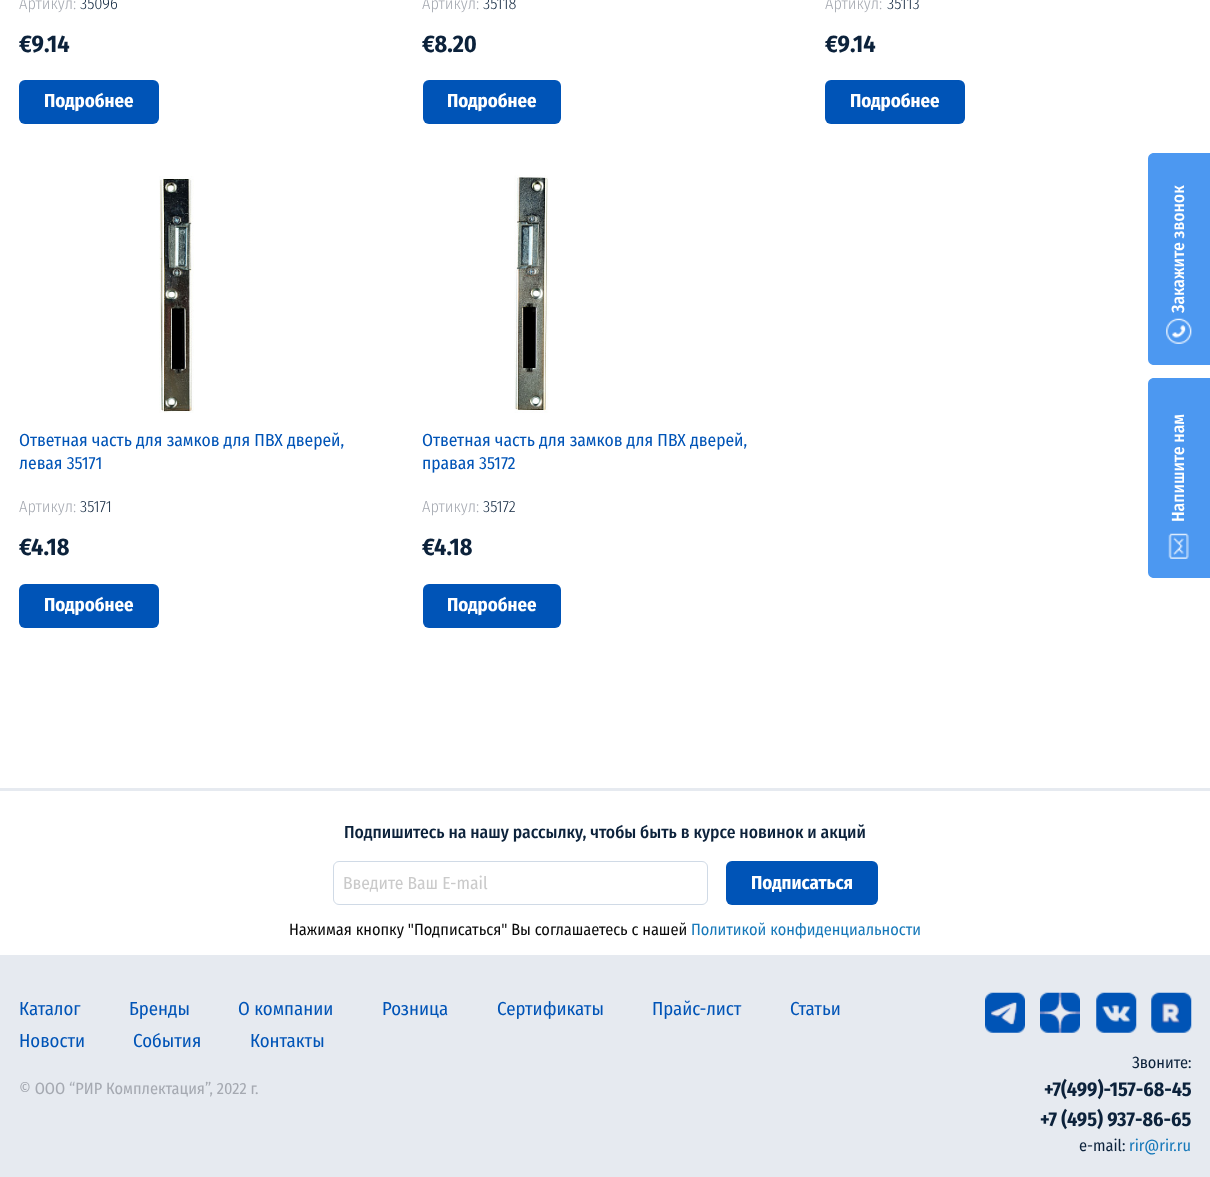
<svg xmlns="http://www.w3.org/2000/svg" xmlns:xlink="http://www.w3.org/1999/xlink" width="1210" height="1177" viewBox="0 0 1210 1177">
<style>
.cls-1{font:300 16.25px Fira Sans Condensed;fill:#a5a9b1}
.cls-2{font:300 16.25px Fira Sans Condensed;fill:#0c223b}
.cls-3{font:bold 24px Fira Sans Condensed;fill:#0c223b}
.cls-4{font:bold 18.75px Fira Sans Condensed;fill:#ffffff}
.cls-5{font:17.5px Fira Sans Condensed;fill:#0054b7}
.cls-6{font:500 17.5px Fira Sans Condensed;fill:#ffffff}
.cls-7{font:500 17.5px Fira Sans Condensed;fill:#0c223b}
.cls-8{font:17.5px Fira Sans Condensed;fill:#cacaca}
.cls-9{font:16.25px Fira Sans Condensed;fill:#0a0a0a}
.cls-10{font:16.25px Fira Sans Condensed;fill:#1779ba}
.cls-11{font:18.75px Fira Sans Condensed;fill:#0054b7}
.cls-12{font:16.25px Fira Sans Condensed;fill:#a5a9b1}
.cls-13{font:16.25px Fira Sans Condensed;fill:#0c223b}
.cls-14{font:bold 20px Fira Sans Condensed;fill:#0c223b}
</style>
<rect width="100%" height="100%" fill="#ffffff"/>
<rect fill="#0054b7" x="19" y="80" width="140" height="44" rx="6"/>
<rect fill="#0054b7" x="423" y="80" width="138" height="44" rx="6"/>
<rect fill="#0054b7" x="825" y="80" width="140" height="44" rx="6"/>
<image xlink:href="image0.png" x="159" y="176" width="35" height="237"/>
<rect fill="#0054b7" x="19" y="584" width="140" height="44" rx="6"/>
<image xlink:href="image1.png" x="514" y="175" width="35" height="238"/>
<rect fill="#0054b7" x="423" y="584" width="138" height="44" rx="6"/>
<path fill="#4c98f1" d="M1154 153H1210V365H1154C1150.5 365 1148 362.5 1148 359V159C1148 155.5 1150.5 153 1154 153Z"/>
<image xlink:href="image2.png" x="1166" y="318" width="26" height="26"/>
<path fill="#4c98f1" d="M1154 378H1210V578H1154C1150.5 578 1148 575.5 1148 572V384C1148 380.5 1150.5 378 1154 378Z"/>
<image xlink:href="image3.png" x="1168" y="533" width="21" height="26"/>
<rect fill="#e6eaf0" x="0" y="788" width="1210" height="3"/>
<rect fill="none" stroke="#d0dae6" x="333.5" y="861.5" width="374" height="43" rx="5.5"/>
<rect fill="#0054b7" x="726" y="861" width="152" height="44" rx="6"/>
<rect fill="#e6eaf0" x="0" y="955" width="1210" height="222"/>
<image xlink:href="image4.png" x="985" y="992" width="40" height="41"/>
<image xlink:href="image5.png" x="1040" y="992" width="40" height="41"/>
<image xlink:href="image6.png" x="1096" y="992" width="41" height="41"/>
<image xlink:href="image7.png" x="1151" y="992" width="41" height="41"/>
<text class="cls-1" x="19" y="9">Артикул:</text>
<text class="cls-2" x="80" y="9">35096</text>
<text class="cls-3" x="19" y="52">€9.14</text>
<text class="cls-4" x="44" y="107">Подробнее</text>
<text class="cls-1" x="422" y="9">Артикул:</text>
<text class="cls-2" x="483" y="9">35118</text>
<text class="cls-3" x="422" y="52">€8.20</text>
<text class="cls-4" x="447" y="107">Подробнее</text>
<text class="cls-1" x="825" y="9">Артикул:</text>
<text class="cls-2" x="887" y="9">35113</text>
<text class="cls-3" x="825" y="52">€9.14</text>
<text class="cls-4" x="850" y="107">Подробнее</text>
<text class="cls-5"><tspan x="19" y="446">Ответная часть для замков для ПВХ дверей,</tspan><tspan x="19" y="469">левая 35171</tspan></text>
<text class="cls-1" x="19" y="512">Артикул:</text>
<text class="cls-2" x="80" y="512">35171</text>
<text class="cls-3" x="19" y="555">€4.18</text>
<text class="cls-4" x="44" y="611">Подробнее</text>
<text class="cls-5"><tspan x="422" y="446">Ответная часть для замков для ПВХ дверей,</tspan><tspan x="422" y="469">правая 35172</tspan></text>
<text class="cls-1" x="422" y="512">Артикул:</text>
<text class="cls-2" x="483" y="512">35172</text>
<text class="cls-3" x="422" y="555">€4.18</text>
<text class="cls-4" x="447" y="611">Подробнее</text>
<text class="cls-6" x="1184" y="313" transform="rotate(-90 1184 313)">Закажите звонок</text>
<text class="cls-6" x="1184" y="522" transform="rotate(-90 1184 522)">Напишите нам</text>
<text class="cls-7" x="344" y="838">Подпишитесь на нашу рассылку, чтобы быть в курсе новинок и акций</text>
<text class="cls-8" x="343" y="889">Введите Ваш E-mail</text>
<text class="cls-4" x="751" y="889">Подписаться</text>
<text class="cls-9" x="289" y="935">Нажимая кнопку "Подписаться" Вы соглашаетесь с нашей</text>
<text class="cls-10" x="691" y="935">Политикой конфиденциальности</text>
<text class="cls-11" x="19" y="1015">Каталог</text>
<text class="cls-11" x="129" y="1015">Бренды</text>
<text class="cls-11" x="238" y="1015">О компании</text>
<text class="cls-11" x="382" y="1015">Розница</text>
<text class="cls-11" x="497" y="1015">Сертификаты</text>
<text class="cls-11" x="652" y="1015">Прайс-лист</text>
<text class="cls-11" x="790" y="1015">Статьи</text>
<text class="cls-11" x="19" y="1047">Новости</text>
<text class="cls-11" x="133" y="1047">События</text>
<text class="cls-11" x="250" y="1047">Контакты</text>
<text class="cls-12" x="19" y="1094">© ООО “РИР Комплектация”, 2022 г.</text>
<text class="cls-13" x="1132" y="1068">Звоните:</text>
<text class="cls-14" x="1044" y="1096">+7(499)-157-68-45</text>
<text class="cls-14" x="1040" y="1126">+7 (495) 937-86-65</text>
<text class="cls-13" x="1079" y="1151">e-mail:</text>
<text class="cls-10" x="1129" y="1151">rir@rir.ru</text>
</svg>
